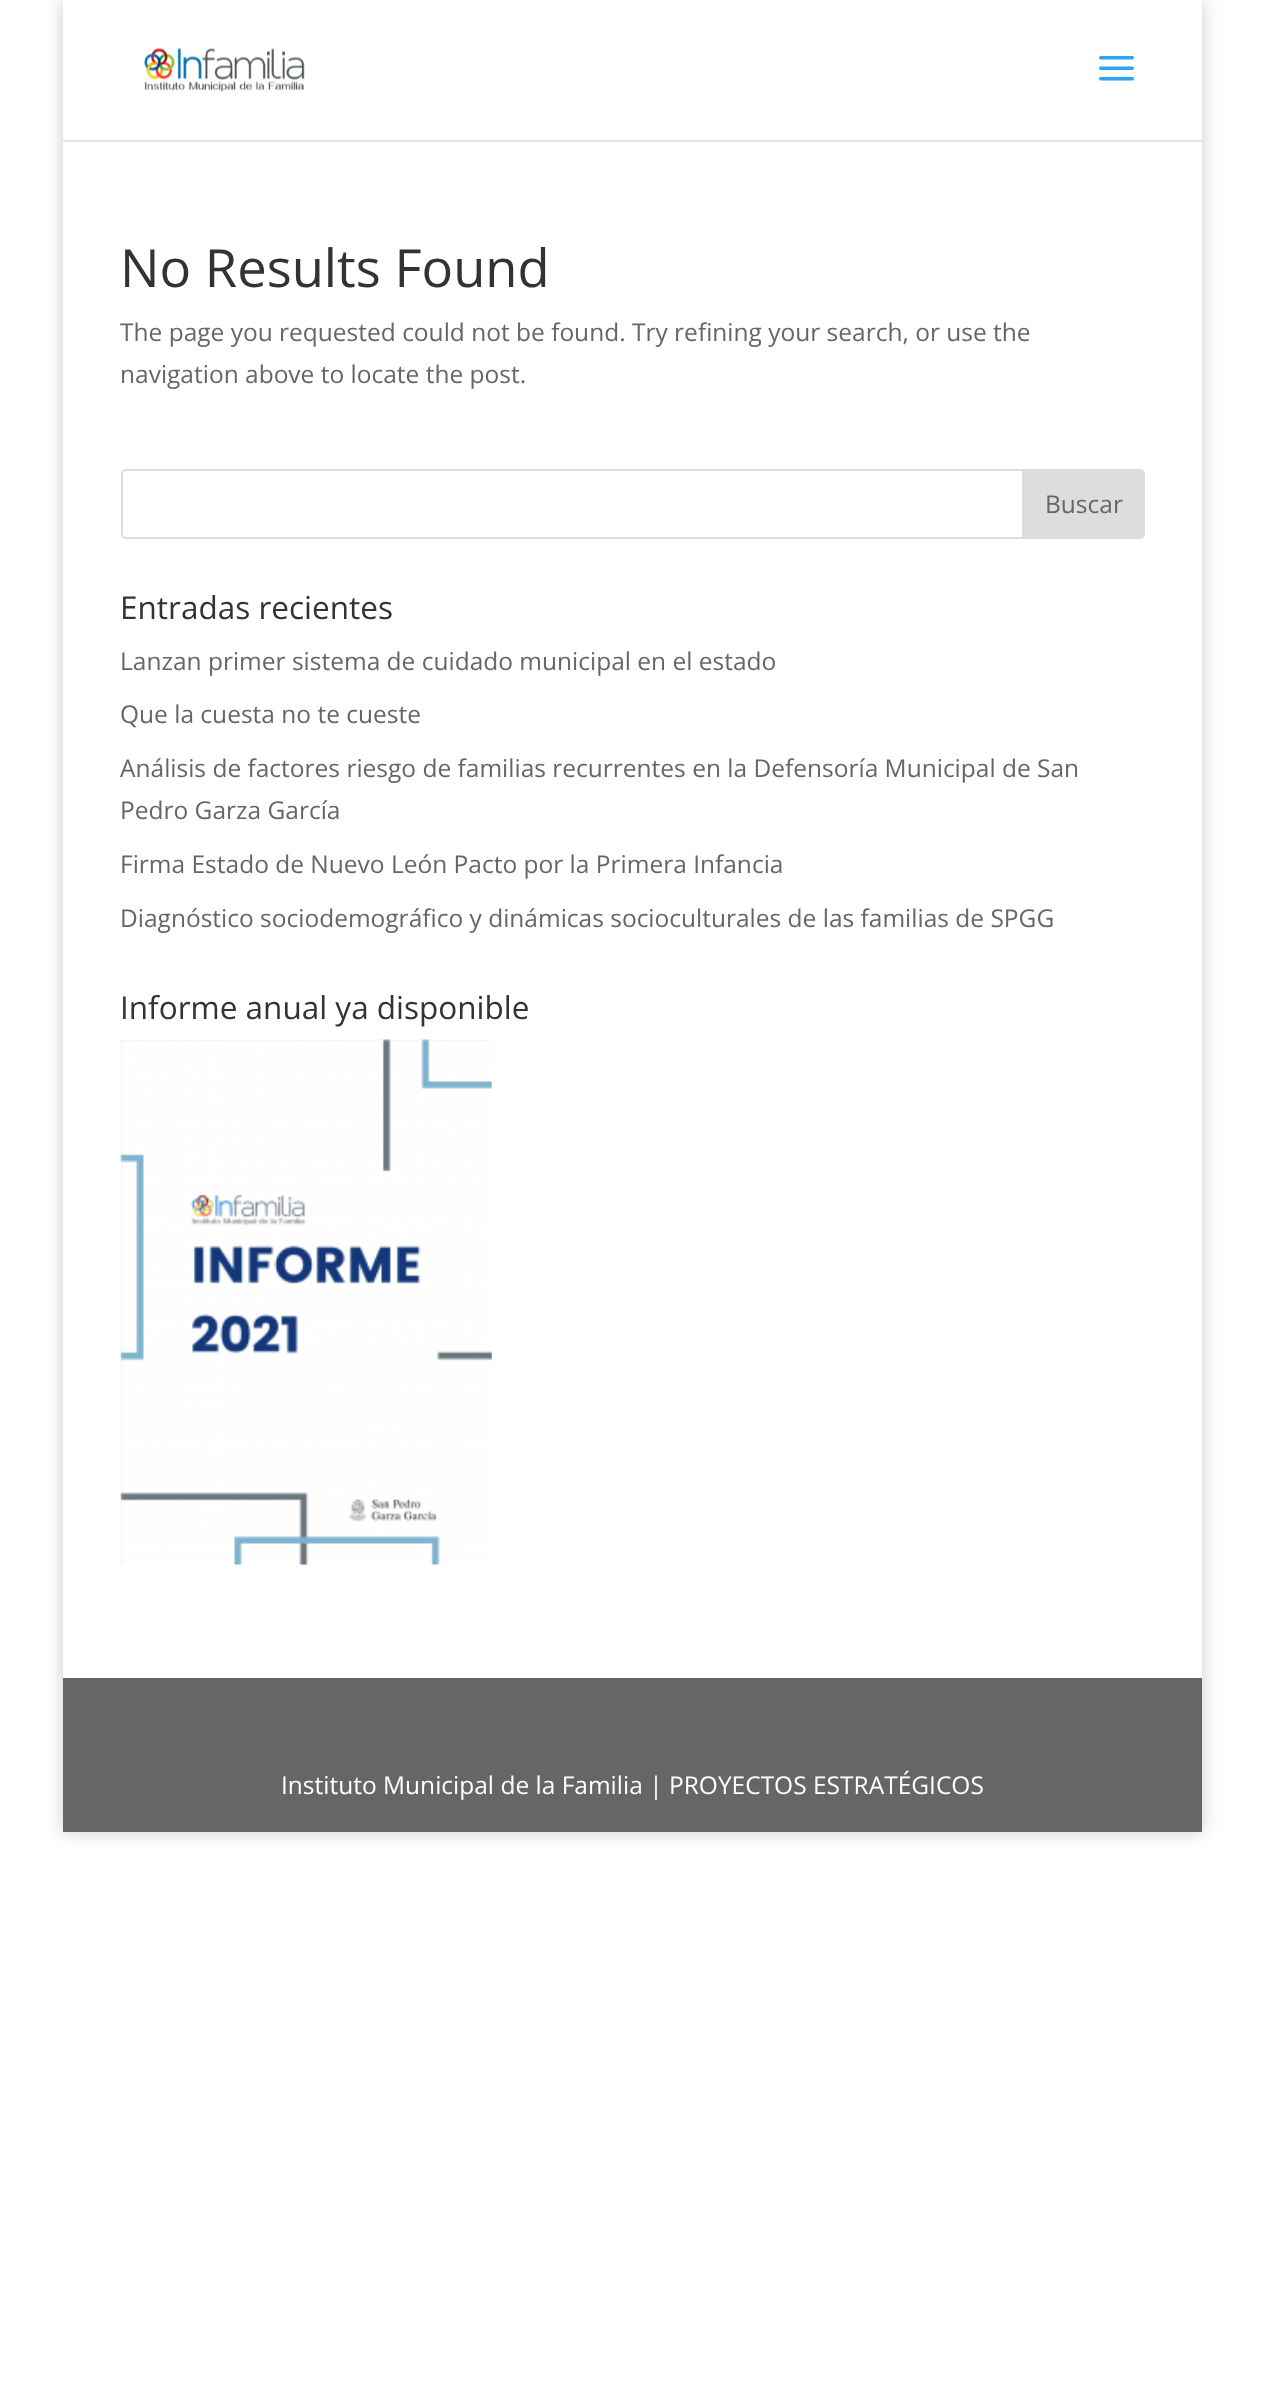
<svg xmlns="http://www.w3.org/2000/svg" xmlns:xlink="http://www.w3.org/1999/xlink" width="1265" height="2384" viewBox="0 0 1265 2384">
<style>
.cls-1{font:52.5px Open Sans;fill:#333333}
.cls-2{font:24.5px Open Sans;fill:#666666}
.cls-3{font:31.5px Open Sans;fill:#333333}
.cls-4{font:24.5px Open Sans;fill:#ffffff}
</style>
<defs>
<clipPath id="clip1"><path d="M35 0H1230V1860H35ZM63 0H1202V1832H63Z" clip-rule="evenodd"/></clipPath>
</defs>
<rect width="100%" height="100%" fill="#ffffff"/>
<g clip-path="url(#clip1)">
<rect fill="#000000" fill-opacity="0.2" filter="blur(9px)" x="63" y="0" width="1139" height="1832"/>
</g>
<rect fill="#e6e6e6" x="63" y="140" width="1139" height="2"/>
<image xlink:href="image0.png" x="144" y="47" width="161" height="46"/>
<image xlink:href="image1.png" x="1099" y="56" width="35" height="25"/>
<rect fill="none" stroke="#dddddd" stroke-width="2" x="122" y="470" width="1022" height="68" rx="4"/>
<path fill="#dddddd" stroke="#dddddd" stroke-width="2" d="M1023 470H1140C1142 470 1144 472 1144 474V534C1144 536 1142 538 1140 538H1023Z"/>
<image xlink:href="image2.png" x="120" y="1039" width="372" height="526"/>
<rect fill="#666666" x="63" y="1678" width="1139" height="154"/>
<text class="cls-1" x="120" y="287">No Results Found</text>
<text class="cls-2"><tspan x="120" y="341">The page you requested could not be found. Try refining your search, or use the</tspan><tspan x="120" y="383">navigation above to locate the post.</tspan></text>
<text class="cls-2" x="1045" y="513">Buscar</text>
<text class="cls-3" x="120" y="619">Entradas recientes</text>
<text class="cls-2" x="120" y="670">Lanzan primer sistema de cuidado municipal en el estado</text>
<text class="cls-2" x="120" y="723">Que la cuesta no te cueste</text>
<text class="cls-2"><tspan x="120" y="777">Análisis de factores riesgo de familias recurrentes en la Defensoría Municipal de San</tspan><tspan x="120" y="819">Pedro Garza García</tspan></text>
<text class="cls-2" x="120" y="873">Firma Estado de Nuevo León Pacto por la Primera Infancia</text>
<text class="cls-2" x="120" y="927">Diagnóstico sociodemográfico y dinámicas socioculturales de las familias de SPGG</text>
<text class="cls-3" x="120" y="1019">Informe anual ya disponible</text>
<text class="cls-4" x="281" y="1794">Instituto Municipal de la Familia | PROYECTOS ESTRATÉGICOS</text>
</svg>
